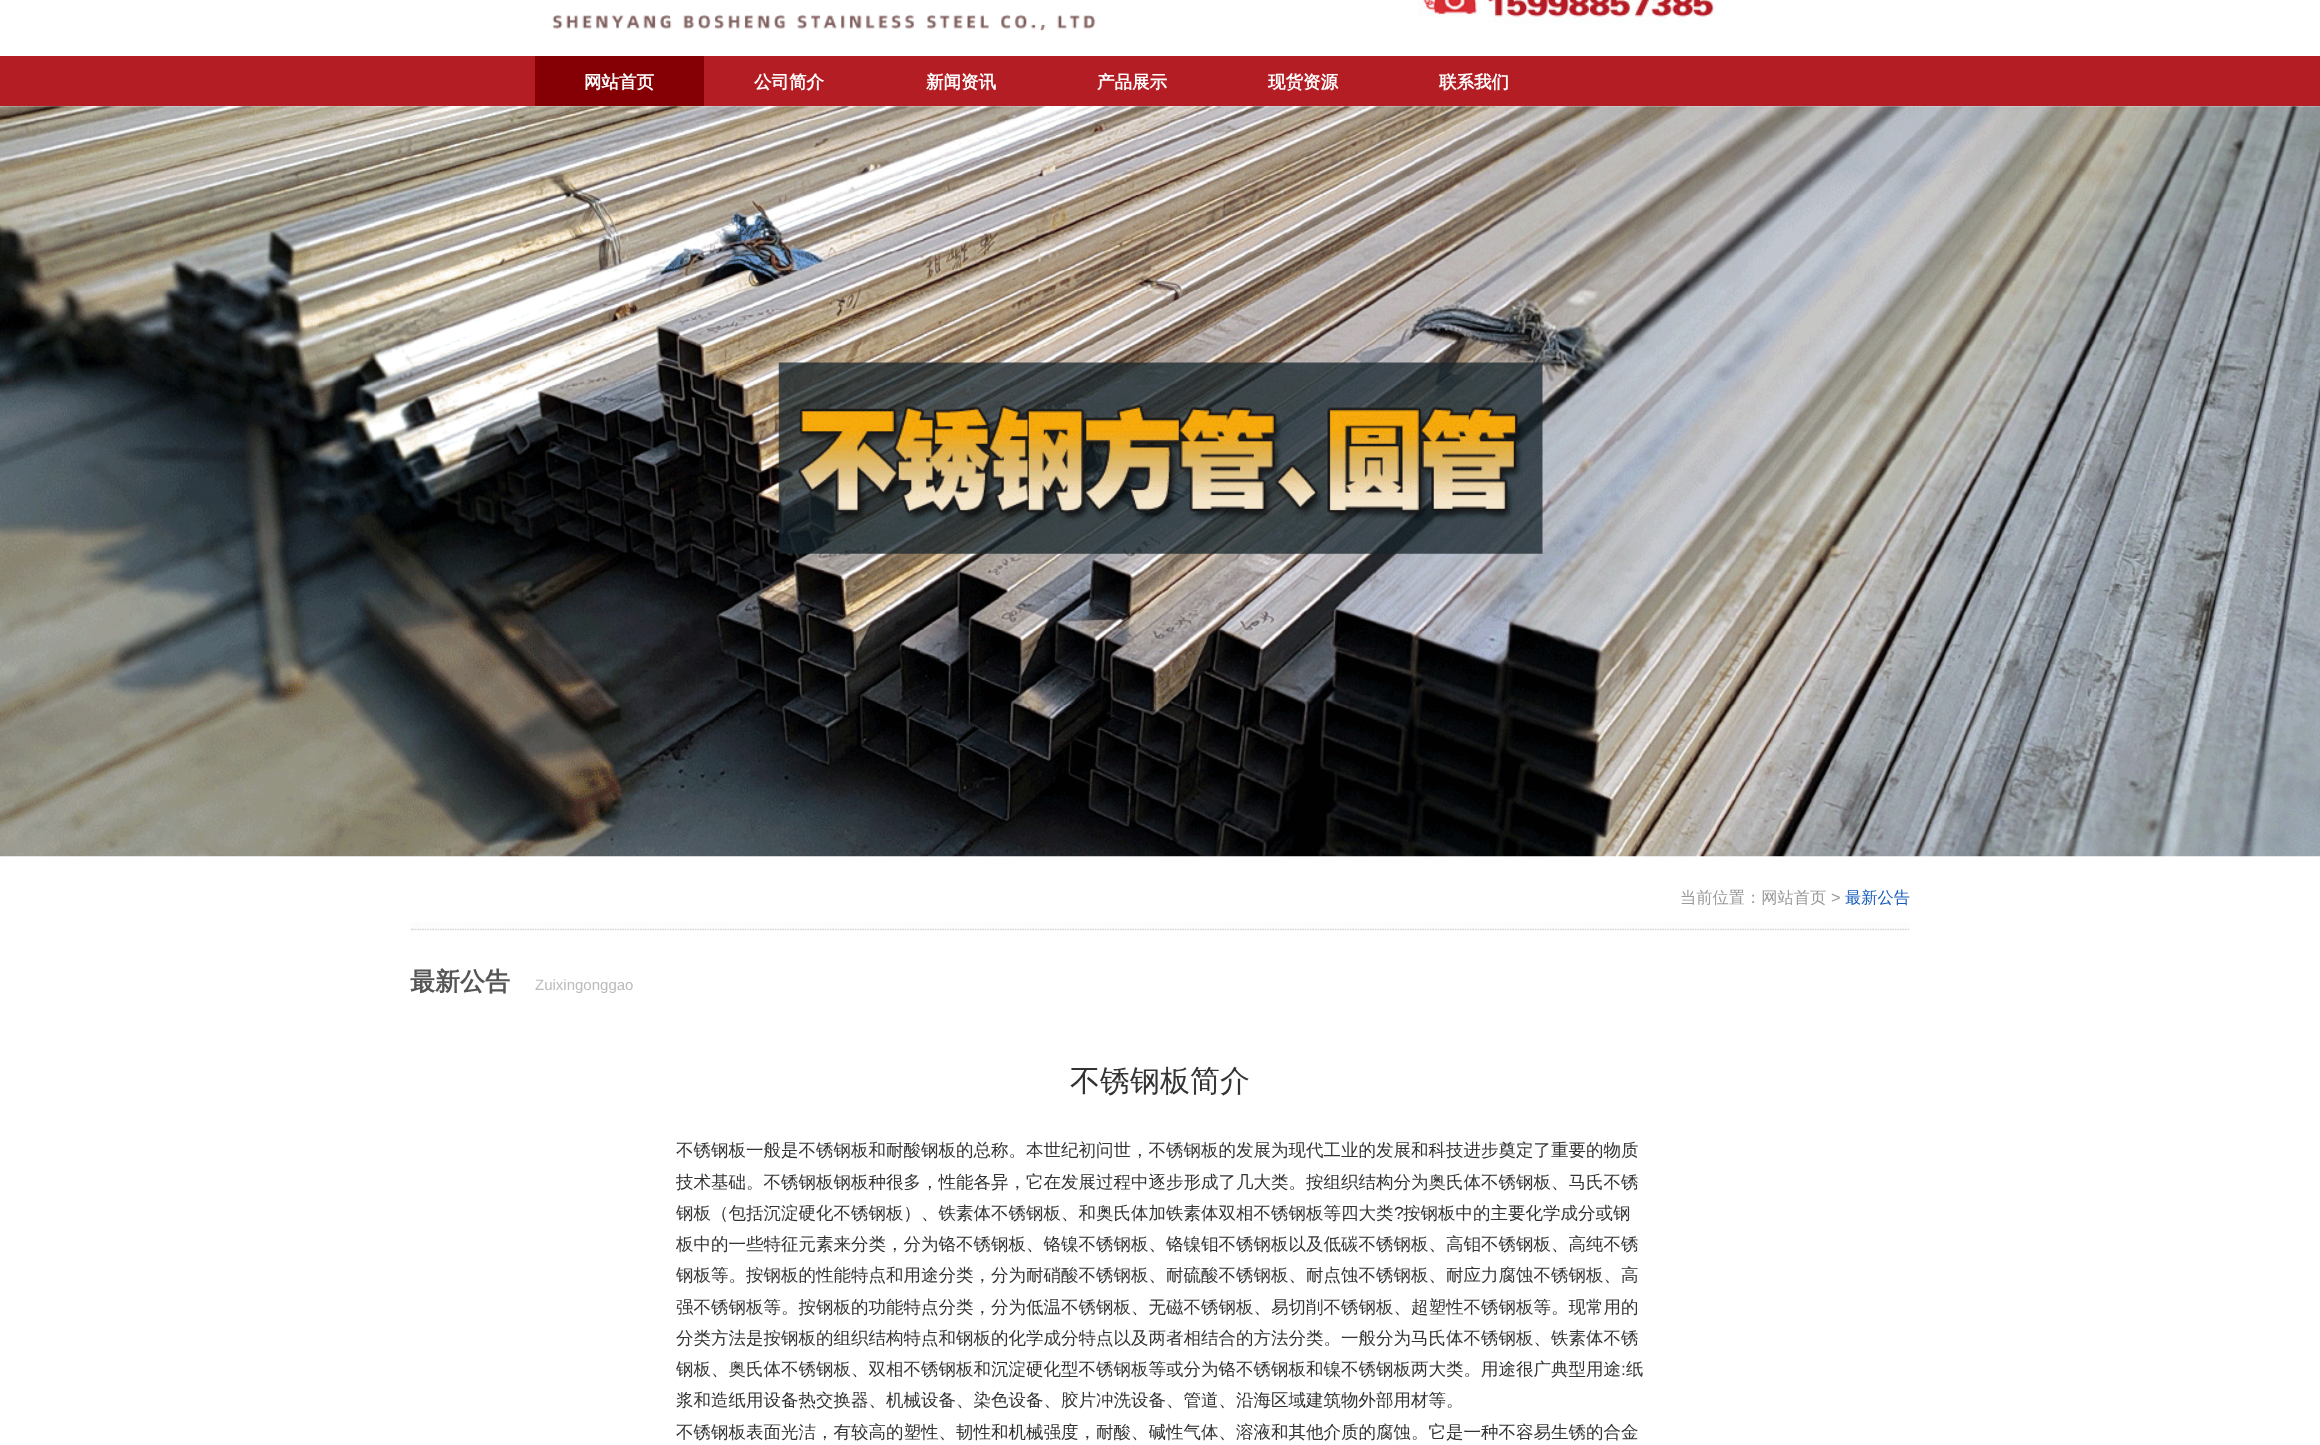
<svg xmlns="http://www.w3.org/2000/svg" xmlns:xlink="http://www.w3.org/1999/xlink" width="2320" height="1445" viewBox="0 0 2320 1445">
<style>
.cls-1{font:bold 17.5px WenQuanYi Zen Hei;fill:#ffffff}
.cls-2{font:500 16.25px WenQuanYi Zen Hei;fill:#999999}
.cls-3{font:16.25px Liberation Sans;fill:#999999}
.cls-4{font:500 16.25px WenQuanYi Zen Hei;fill:#155cbc}
.cls-5{font:bold 25px WenQuanYi Zen Hei;fill:#555555}
.cls-6{font:15px Liberation Sans;fill:#bbbbbb}
.cls-7{font:500 30px WenQuanYi Zen Hei;fill:#333333}
.cls-8{font:500 17.5px WenQuanYi Zen Hei;fill:#333333}
.cls-9{font:17.5px Liberation Sans;fill:#333333}
</style>
<rect width="100%" height="100%" fill="#ffffff"/>
<image xlink:href="image0.png" x="552" y="14" width="544" height="17"/>
<image xlink:href="image1.png" x="1417" y="0" width="300" height="25"/>
<rect fill="#b41d23" x="0" y="56" width="2320" height="50"/>
<rect fill="#840005" x="535" y="56" width="169" height="50"/>
<image xlink:href="image2.png" x="0" y="106" width="2320" height="751"/>
<image xlink:href="image3.png" x="410" y="922" width="1500" height="9"/>
<text class="cls-1" x="584" y="88">网站首页</text>
<text class="cls-1" x="754" y="88">公司简介</text>
<text class="cls-1" x="926" y="88">新闻资讯</text>
<text class="cls-1" x="1097" y="88">产品展示</text>
<text class="cls-1" x="1268" y="88">现货资源</text>
<text class="cls-1" x="1439" y="88">联系我们</text>
<text class="cls-2" x="1680" y="903">当前位置：网站首页</text>
<text class="cls-3" x="1831" y="903">&gt;</text>
<text class="cls-4" x="1845" y="903">最新公告</text>
<text class="cls-5" x="410" y="990">最新公告</text>
<text class="cls-6" x="535" y="990">Zuixingonggao</text>
<text class="cls-7" x="1070" y="1091">不锈钢板简介</text>
<text class="cls-8"><tspan x="676" y="1156">不锈钢板一般是不锈钢板和耐酸钢板的总称。本世纪初问世，不锈钢板的发展为现代工业的发展和科技进步奠定了重要的物质</tspan><tspan x="676" y="1188">技术基础。不锈钢板钢板种很多，性能各异，它在发展过程中逐步形成了几大类。按组织结构分为奥氏体不锈钢板、马氏不锈</tspan><tspan x="676" y="1219">钢板（包括沉淀硬化不锈钢板）、铁素体不锈钢板、和奥氏体加铁素体双相不锈钢板等四大类</tspan></text>
<text class="cls-9" x="1394" y="1219">?</text>
<text class="cls-8" x="1403" y="1219">按钢板中的主要化学成分或钢</text>
<text class="cls-8"><tspan x="676" y="1250">板中的一些特征元素来分类，分为铬不锈钢板、铬镍不锈钢板、铬镍钼不锈钢板以及低碳不锈钢板、高钼不锈钢板、高纯不锈</tspan><tspan x="676" y="1281">钢板等。按钢板的性能特点和用途分类，分为耐硝酸不锈钢板、耐硫酸不锈钢板、耐点蚀不锈钢板、耐应力腐蚀不锈钢板、高</tspan><tspan x="676" y="1313">强不锈钢板等。按钢板的功能特点分类，分为低温不锈钢板、无磁不锈钢板、易切削不锈钢板、超塑性不锈钢板等。现常用的</tspan><tspan x="676" y="1344">分类方法是按钢板的组织结构特点和钢板的化学成分特点以及两者相结合的方法分类。一般分为马氏体不锈钢板、铁素体不锈</tspan><tspan x="676" y="1375">钢板、奥氏体不锈钢板、双相不锈钢板和沉淀硬化型不锈钢板等或分为铬不锈钢板和镍不锈钢板两大类。用途很广典型用途</tspan></text>
<text class="cls-9" x="1621" y="1375">:</text>
<text class="cls-8" x="1626" y="1375">纸</text>
<text class="cls-8"><tspan x="676" y="1406">浆和造纸用设备热交换器、机械设备、染色设备、胶片冲洗设备、管道、沿海区域建筑物外部用材等。</tspan><tspan x="676" y="1438">不锈钢板表面光洁，有较高的塑性、韧性和机械强度，耐酸、碱性气体、溶液和其他介质的腐蚀。它是一种不容易生锈的合金</tspan></text>
</svg>
